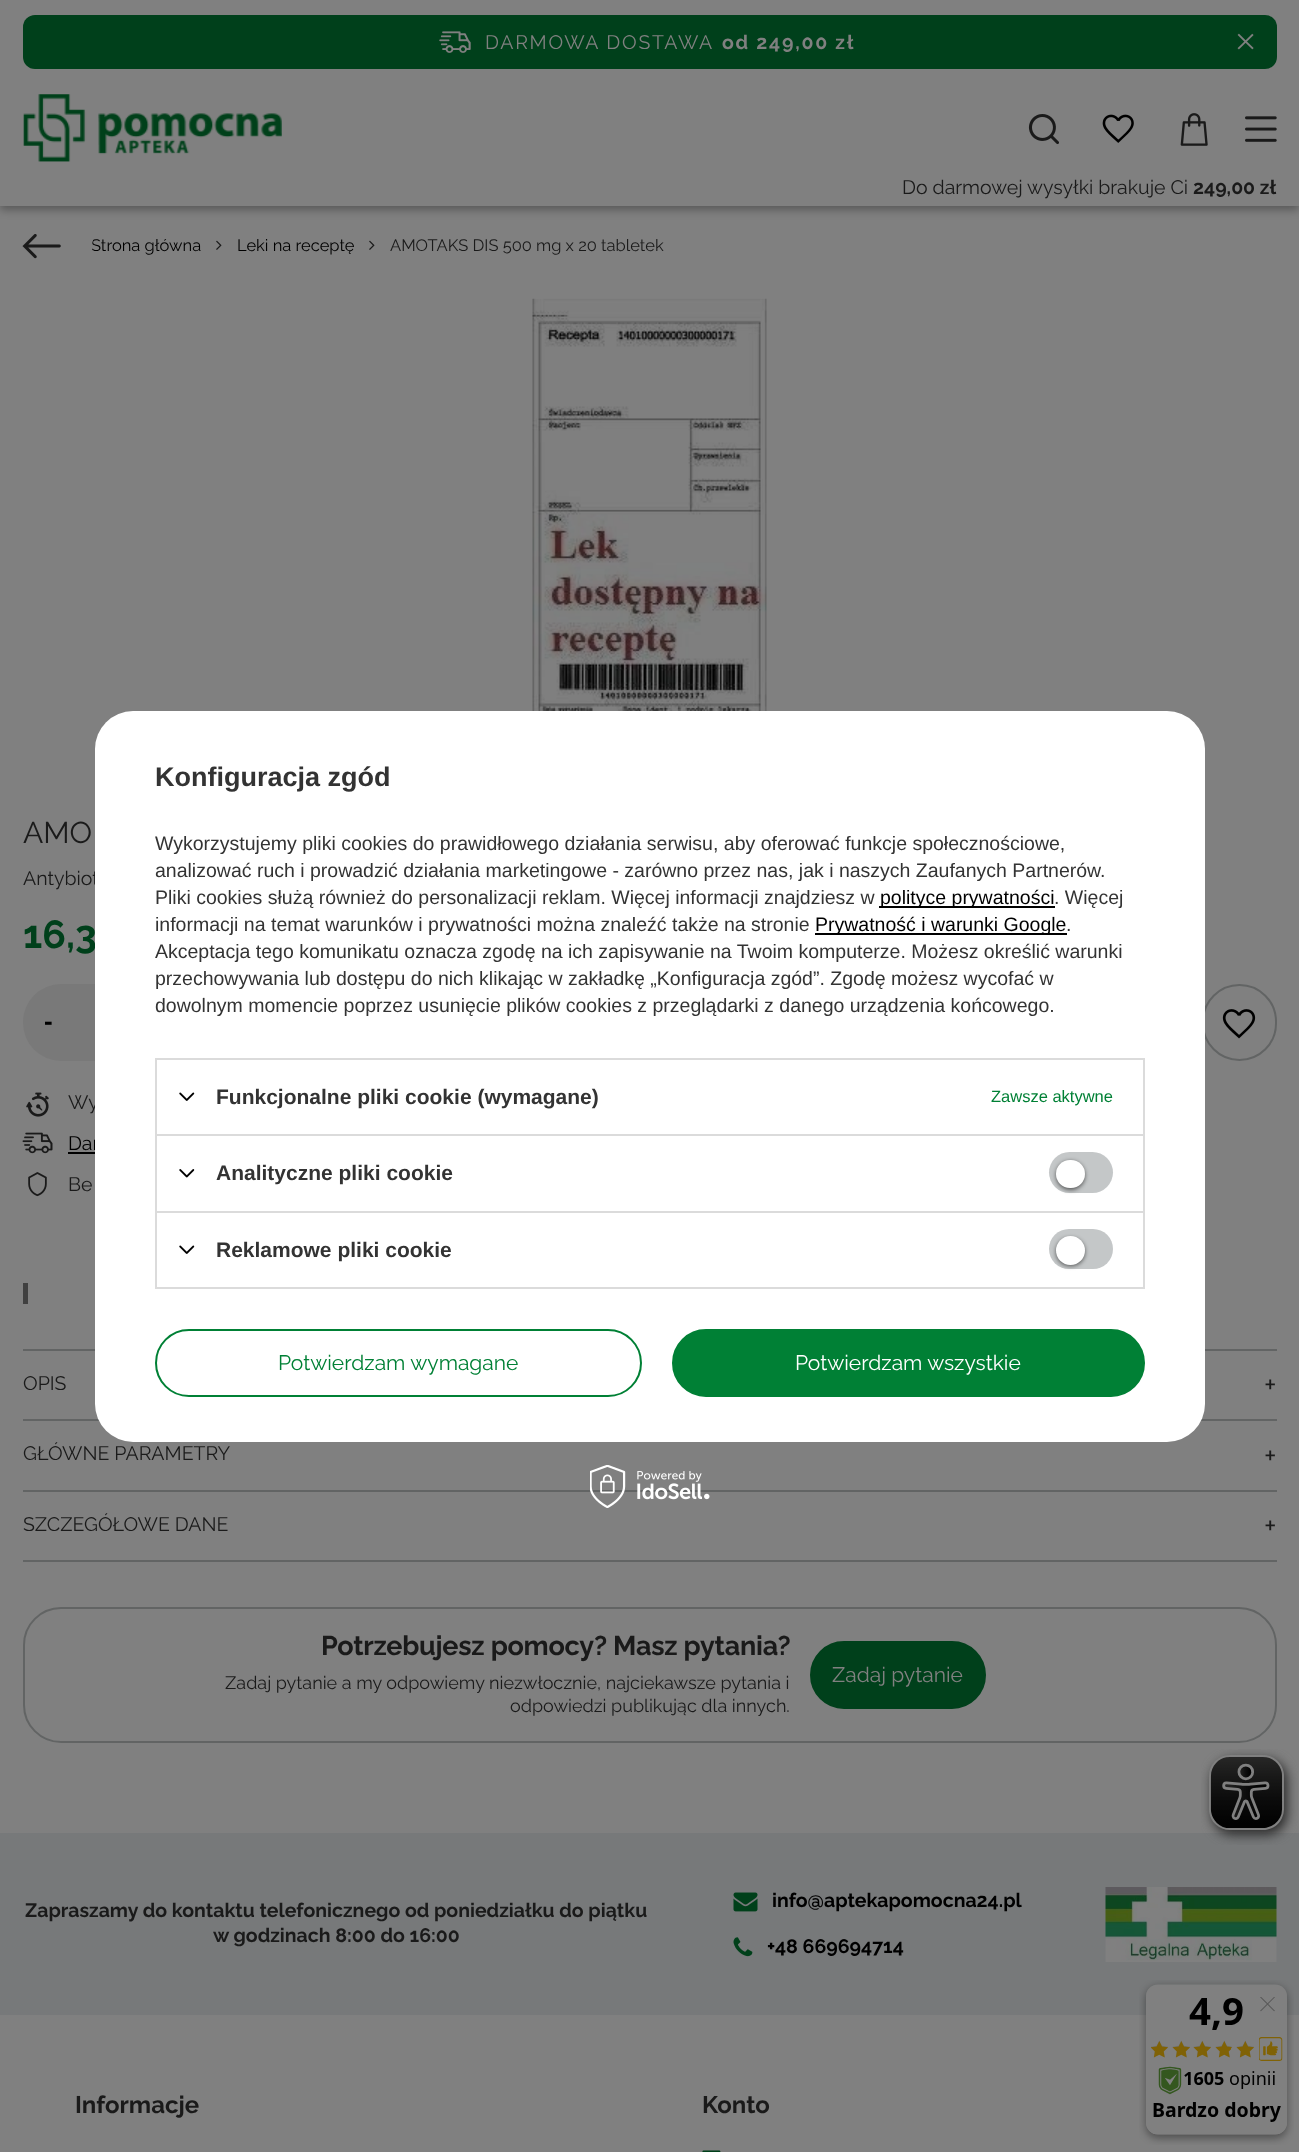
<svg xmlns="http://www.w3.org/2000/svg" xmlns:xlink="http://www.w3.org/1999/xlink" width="1299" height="2152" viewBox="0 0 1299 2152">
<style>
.cls-1{font:19.5px Raleway;letter-spacing:1.75px;fill:#808080}
.cls-2{font:bold 19.5px Raleway;letter-spacing:1.75px;fill:#808080}
.cls-3{font:19.5px Raleway;fill:#1a1a1a}
.cls-4{font:bold 19.5px Raleway;fill:#1a1a1a}
.cls-5{font:16.5px Raleway;fill:#000000}
.cls-6{font:16.5px Raleway;fill:#1a1a1a}
.cls-7{font:30px Raleway;fill:#1a1a1a}
.cls-8{font:bold 39px Raleway;fill:#00401b}
.cls-9{font:bold 26px Liberation Sans;fill:#000000}
.cls-10{font:19.5px Raleway;fill:#000000}
.cls-11{font:bold 27px Raleway;letter-spacing:-0.25px;fill:#1a1a1a}
.cls-12{font:18px Raleway;fill:#1a1a1a}
.cls-13{font:21px Raleway;fill:#808080}
.cls-14{font:bold 27px Liberation Sans;fill:#333333}
.cls-15{font:19.5px Liberation Sans;fill:#333333}
.cls-16{font:19.5px Liberation Sans;fill:#000000}
.cls-17{font:bold 21px Liberation Sans;fill:#333333}
.cls-18{font:16.5px Liberation Sans;fill:#008035}
.cls-19{font:21px Raleway;fill:#008035}
.cls-20{font:21px Raleway;fill:#ffffff}
.cls-21{font:bold 19.5px Raleway;fill:#000000}
.cls-22{font:bold 24px Raleway;fill:#1a1a1a}
</style>
<defs>
<clipPath id="clip1"><rect x="92" y="224" width="573" height="45" rx="22.5"/></clipPath>
</defs>
<rect width="100%" height="100%" fill="#808080"/>
<rect fill="#000000" fill-opacity="0.3" filter="blur(4px)" x="0" y="5" width="1299" height="205"/>
<rect fill="#808080" x="0" y="0" width="1299" height="206"/>
<rect fill="#00401b" x="23" y="15" width="1254" height="54" rx="12"/>
<image xlink:href="image0.png" x="439" y="31" width="32" height="22"/>
<image xlink:href="image1.png" x="1237" y="33" width="17" height="17"/>
<image xlink:href="image2.png" x="23" y="94" width="259" height="68"/>
<image xlink:href="image3.png" x="1028" y="114" width="31" height="31"/>
<image xlink:href="image4.png" x="1102" y="114" width="32" height="29"/>
<image xlink:href="image5.png" x="1180" y="113" width="28" height="33"/>
<image xlink:href="image6.png" x="1245" y="116" width="32" height="26"/>
<image xlink:href="image7.png" x="22" y="234" width="39" height="25"/>
<image xlink:href="image8.png" x="216" y="240" width="6" height="10"/>
<image xlink:href="image8.png" x="369" y="240" width="6" height="10"/>
<image xlink:href="image9.png" x="532" y="298" width="235" height="413"/>
<rect fill="#797979" x="23" y="984" width="180" height="77" rx="38"/>
<rect fill="none" stroke="#626464" stroke-width="2" x="1203" y="985" width="73" height="75" rx="36.5"/>
<image xlink:href="image10.png" x="1222" y="1009" width="34" height="30"/>
<image xlink:href="image11.png" x="26" y="1092" width="23" height="25"/>
<image xlink:href="image12.png" x="22" y="1132" width="31" height="22"/>
<rect fill="#000000" x="68" y="1152" width="27" height="2"/>
<image xlink:href="image13.png" x="28" y="1172" width="19" height="25"/>
<rect fill="#404040" x="23" y="1283" width="5" height="21"/>
<rect fill="#626464" x="23" y="1349" width="1254" height="2"/>
<rect fill="#626464" x="23" y="1419" width="1254" height="2"/>
<rect fill="#626464" x="23" y="1560" width="1254" height="2"/>
<rect fill="#626464" x="23" y="1490" width="1254" height="2"/>
<rect fill="none" stroke="#626464" stroke-width="2" x="24" y="1608" width="1252" height="134" rx="37"/>
<rect fill="#00401b" stroke="#00401b" stroke-width="2" x="811" y="1642" width="174" height="66" rx="33"/>
<image xlink:href="image16.png" x="590" y="1465" width="120" height="43"/>
<rect fill="#77797a" x="0" y="1833" width="1299" height="182"/>
<image xlink:href="image17.png" x="1201" y="1749" width="97" height="96"/>
<image xlink:href="image18.png" x="733" y="1892" width="25" height="20"/>
<image xlink:href="image19.png" x="733" y="1937" width="20" height="20"/>
<image xlink:href="image20.png" x="1105" y="1887" width="172" height="75"/>
<image xlink:href="image21.png" x="702" y="2150" width="19" height="2"/>
<image xlink:href="image22.png" x="1139" y="1980" width="155" height="165"/>
<text class="cls-1" x="485" y="49">DARMOWA DOSTAWA</text>
<text class="cls-2" x="722" y="49">od 249,00 zł</text>
<text class="cls-3" x="902" y="194">Do darmowej wysyłki brakuje Ci</text>
<text class="cls-4" x="1193" y="194">249,00 zł</text>
<g clip-path="url(#clip1)">
<text class="cls-5" x="91" y="251">Strona główna</text>
</g>
<text class="cls-5" x="237" y="251">Leki na receptę</text>
<text class="cls-6" x="390" y="251">AMOTAKS DIS 500 mg x 20 tabletek</text>
<text class="cls-7" x="23" y="843">AMO</text>
<text class="cls-3" x="23" y="885">Antybiot</text>
<text class="cls-8" x="23" y="948">16,3</text>
<text class="cls-9" x="44" y="1030">-</text>
<text class="cls-3" x="68" y="1109">Wy</text>
<text class="cls-10" x="68" y="1150">Dar</text>
<text class="cls-3" x="68" y="1191">Be</text>
<text class="cls-3" x="23" y="1390">OPIS</text>
<text class="cls-7" x="1264" y="1395">+</text>
<text class="cls-3" x="23" y="1460">GŁÓWNE PARAMETRY</text>
<text class="cls-7" x="1264" y="1466">+</text>
<text class="cls-3" x="23" y="1531">SZCZEGÓŁOWE DANE</text>
<text class="cls-7" x="1264" y="1536">+</text>
<text class="cls-11" x="321" y="1655">Potrzebujesz pomocy? Masz pytania?</text>
<text class="cls-12" x="225" y="1689">Zadaj pytanie a my odpowiemy niezwłocznie, najciekawsze pytania i</text>
<text class="cls-12" x="510" y="1712">odpowiedzi publikując dla innych.</text>
<text class="cls-13" x="832" y="1682">Zadaj pytanie</text>
<rect fill="#ffffff" x="95" y="711" width="1110" height="731" rx="38"/>
<text class="cls-14" x="155" y="786">Konfiguracja zgód</text>
<text class="cls-15"><tspan x="155" y="850">Wykorzystujemy pliki cookies do prawidłowego działania serwisu, aby oferować funkcje społecznościowe,</tspan><tspan x="155" y="877">analizować ruch i prowadzić działania marketingowe - zarówno przez nas, jak i naszych Zaufanych Partnerów.</tspan><tspan x="155" y="904">Pliki cookies służą również do personalizacji reklam. Więcej informacji znajdziesz w</tspan></text>
<rect fill="#000000" x="879" y="906" width="176" height="2"/>
<text class="cls-16" x="880" y="904">polityce prywatności</text>
<text class="cls-15" x="1054" y="904">. Więcej</text>
<text class="cls-15" x="155" y="931">informacji na temat warunków i prywatności można znaleźć także na stronie</text>
<rect fill="#000000" x="815" y="933" width="252" height="2"/>
<text class="cls-16" x="815" y="931">Prywatność i warunki Google</text>
<text class="cls-15" x="1066" y="931">.</text>
<text class="cls-15"><tspan x="155" y="958">Akceptacja tego komunikatu oznacza zgodę na ich zapisywanie na Twoim komputerze. Możesz określić warunki</tspan><tspan x="155" y="985">przechowywania lub dostępu do nich klikając w zakładkę „Konfiguracja zgód”. Zgodę możesz wycofać w</tspan><tspan x="155" y="1012">dowolnym momencie poprzez usunięcie plików cookies z przeglądarki z danego urządzenia końcowego.</tspan></text>
<rect fill="#dbdbdb" x="155" y="1058" width="990" height="2"/>
<rect fill="#dbdbdb" x="1143" y="1058" width="2" height="76"/>
<rect fill="#dbdbdb" x="155" y="1058" width="2" height="76"/>
<image xlink:href="image14.png" x="179" y="1092" width="16" height="9"/>
<text class="cls-17" x="216" y="1104">Funkcjonalne pliki cookie (wymagane)</text>
<text class="cls-18" x="991" y="1102">Zawsze aktywne</text>
<rect fill="#dbdbdb" x="155" y="1134" width="990" height="2"/>
<rect fill="#dbdbdb" x="1143" y="1134" width="2" height="77"/>
<rect fill="#dbdbdb" x="155" y="1134" width="2" height="77"/>
<image xlink:href="image15.png" x="179" y="1169" width="16" height="9"/>
<text class="cls-17" x="216" y="1180">Analityczne pliki cookie</text>
<rect fill="#c4c7c8" x="1049" y="1152" width="64" height="41" rx="20.5"/>
<rect fill="#000000" fill-opacity="0.56" filter="blur(2px)" x="1056" y="1161" width="29" height="29" rx="14.5"/>
<rect fill="#ffffff" x="1056" y="1160" width="29" height="28" rx="14"/>
<rect fill="none" stroke="#dbdbdb" stroke-width="2" x="156" y="1212" width="988" height="76"/>
<image xlink:href="image14.png" x="179" y="1245" width="16" height="9"/>
<text class="cls-17" x="216" y="1257">Reklamowe pliki cookie</text>
<rect fill="#c4c7c8" x="1049" y="1229" width="64" height="40" rx="20"/>
<rect fill="#000000" fill-opacity="0.56" filter="blur(2px)" x="1056" y="1238" width="29" height="28" rx="14"/>
<circle fill="#ffffff" cx="1070.5" cy="1250.5" r="14.5"/>
<rect fill="none" stroke="#008035" stroke-width="2" x="156" y="1330" width="485" height="66" rx="33"/>
<text class="cls-19" x="278" y="1370">Potwierdzam wymagane</text>
<rect fill="#008035" stroke="#008035" stroke-width="2" x="673" y="1330" width="471" height="66" rx="33"/>
<text class="cls-20" x="795" y="1370">Potwierdzam wszystkie</text>
<text class="cls-4" x="25" y="1917">Zapraszamy do kontaktu telefonicznego od poniedziałku do piątku</text>
<text class="cls-4" x="213" y="1942">w godzinach 8:00 do 16:00</text>
<text class="cls-21" x="772" y="1907">info@aptekapomocna24.pl</text>
<text class="cls-21" x="767" y="1953">+48 669694714</text>
<text class="cls-22" x="75" y="2113">Informacje</text>
<text class="cls-22" x="702" y="2113">Konto</text>
</svg>
